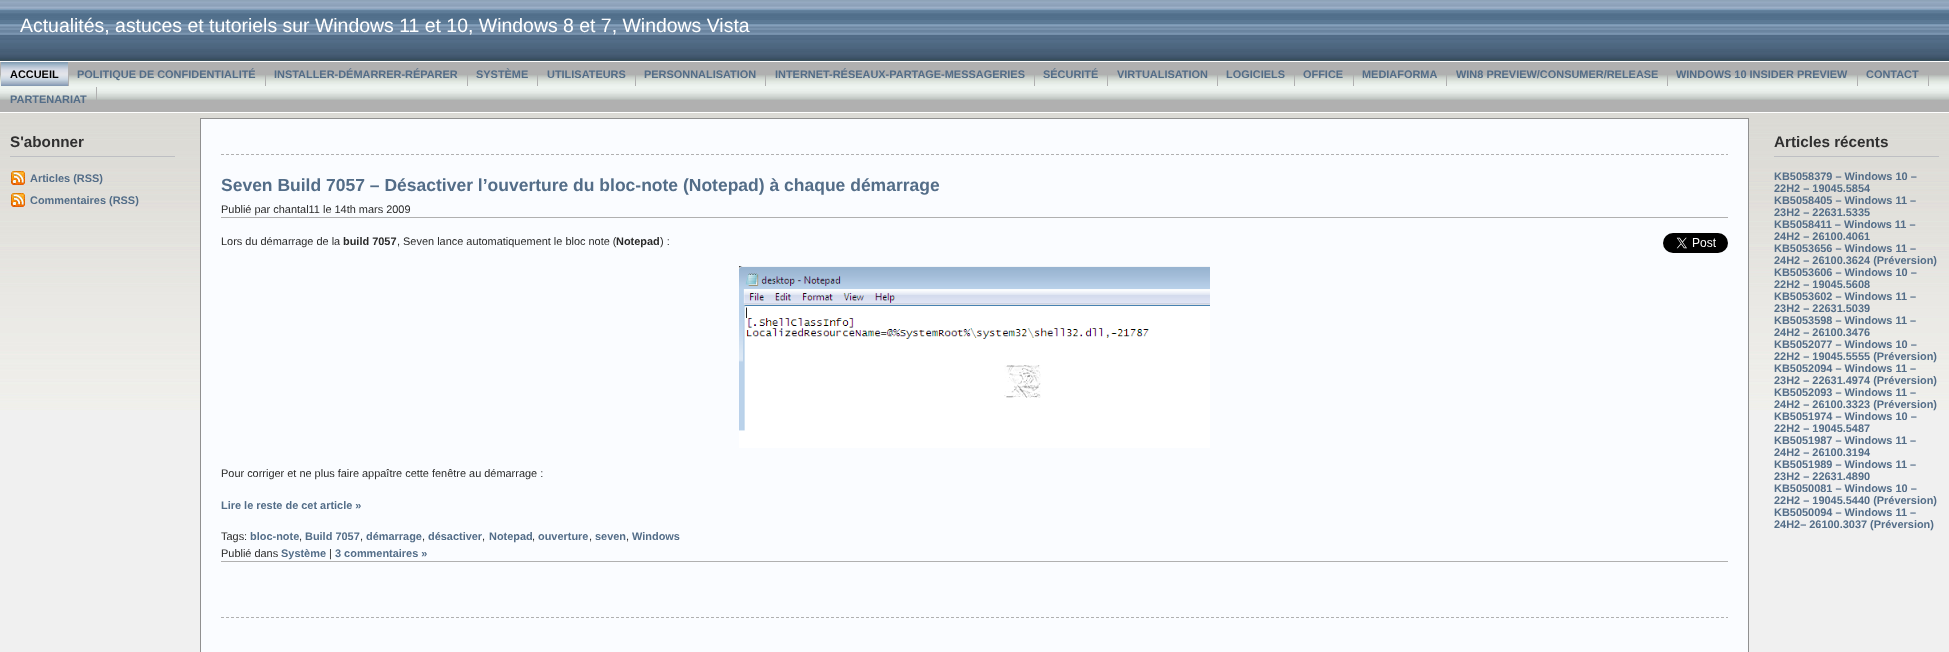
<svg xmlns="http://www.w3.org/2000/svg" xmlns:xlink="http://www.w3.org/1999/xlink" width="1949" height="652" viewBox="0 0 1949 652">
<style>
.cls-1{font:19.45px Liberation Sans;fill:#ffffff}
.cls-2{font:bold 10.95px Liberation Sans;fill:#536d88}
.cls-3{font:bold 10.95px Liberation Sans;fill:#000000}
.cls-4{font:bold 15.25px Liberation Sans;fill:#303030}
.cls-5{font:bold 17.5px Liberation Sans;fill:#536d88}
.cls-6{font:10.95px Liberation Sans;fill:#2a2a2a}
.cls-7{font:bold 10.95px Liberation Sans;fill:#2a2a2a}
</style>
<rect width="100%" height="100%" fill="#f0f0f0"/>
<image xlink:href="image0.png" x="0" y="0" width="1949" height="410"/>
<rect fill="#b0b0b0" x="0" y="62" width="1949" height="50"/>
<image xlink:href="image1.png" x="0" y="75" width="1949" height="25"/>
<rect fill="#ffffff" x="0" y="61" width="1949" height="1"/>
<rect fill="#ffffff" x="0" y="112" width="1949" height="1"/>
<image xlink:href="image2.png" x="1" y="62" width="67" height="24"/>
<rect fill="#b0b0b0" x="265" y="75" width="1" height="11"/>
<rect fill="#b0b0b0" x="467" y="75" width="1" height="11"/>
<rect fill="#b0b0b0" x="537" y="75" width="1" height="11"/>
<rect fill="#b0b0b0" x="1034" y="75" width="1" height="11"/>
<rect fill="#b0b0b0" x="1107" y="75" width="1" height="11"/>
<rect fill="#b0b0b0" x="68" y="75" width="1" height="11"/>
<rect fill="#b0b0b0" x="635" y="75" width="1" height="11"/>
<rect fill="#b0b0b0" x="765" y="75" width="1" height="11"/>
<rect fill="#b0b0b0" x="1217" y="75" width="1" height="11"/>
<rect fill="#b0b0b0" x="1294" y="75" width="1" height="11"/>
<rect fill="#b0b0b0" x="1353" y="75" width="1" height="11"/>
<rect fill="#b0b0b0" x="1446" y="75" width="1" height="11"/>
<rect fill="#b0b0b0" x="1667" y="75" width="1" height="11"/>
<rect fill="#b0b0b0" x="1857" y="75" width="1" height="11"/>
<rect fill="#b0b0b0" x="1928" y="75" width="1" height="11"/>
<rect fill="#b0b0b0" x="96" y="87" width="1" height="13"/>
<rect fill="#bebfc3" x="10" y="156" width="165" height="1"/>
<image xlink:href="image3.png" x="11" y="171" width="14" height="14"/>
<image xlink:href="image4.png" x="11" y="193" width="14" height="14"/>
<rect fill="#fafcff" stroke="#909090" x="200.5" y="118.5" width="1548" height="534"/>
<path fill="none" stroke="#b0b0b0" stroke-dasharray="3 2" d="M221 154.5H1728"/>
<rect fill="#b0b0b0" x="221" y="217" width="1507" height="1"/>
<image xlink:href="image5.png" x="1663" y="233" width="65" height="20"/>
<image xlink:href="image6.png" x="739" y="266" width="471" height="182"/>
<rect fill="#b0b0b0" x="221" y="561" width="1507" height="1"/>
<path fill="none" stroke="#b0b0b0" stroke-dasharray="3 2" d="M221 617.5H1728"/>
<rect fill="#bebfc3" x="1774" y="156" width="165" height="1"/>
<text class="cls-1" x="20" y="32">Actualités, astuces et tutoriels sur Windows 11 et 10, Windows 8 et 7, Windows Vista</text>
<text class="cls-2" x="77" y="78">POLITIQUE DE CONFIDENTIALITÉ</text>
<text class="cls-2" x="274" y="78">INSTALLER-DÉMARRER-RÉPARER</text>
<text class="cls-2" x="476" y="78">SYSTÈME</text>
<text class="cls-2" x="775" y="78">INTERNET-RÉSEAUX-PARTAGE-MESSAGERIES</text>
<text class="cls-2" x="1043" y="78">SÉCURITÉ</text>
<text class="cls-3" x="10" y="78">ACCUEIL</text>
<text class="cls-2" x="547" y="78">UTILISATEURS</text>
<text class="cls-2" x="644" y="78">PERSONNALISATION</text>
<text class="cls-2" x="1117" y="78">VIRTUALISATION</text>
<text class="cls-2" x="1226" y="78">LOGICIELS</text>
<text class="cls-2" x="1303" y="78">OFFICE</text>
<text class="cls-2" x="1362" y="78">MEDIAFORMA</text>
<text class="cls-2" x="1456" y="78">WIN8 PREVIEW/CONSUMER/RELEASE</text>
<text class="cls-2" x="1676" y="78">WINDOWS 10 INSIDER PREVIEW</text>
<text class="cls-2" x="1866" y="78">CONTACT</text>
<text class="cls-2" x="10" y="103">PARTENARIAT</text>
<text class="cls-4" x="10" y="147">S'abonner</text>
<text class="cls-2" x="30" y="182">Articles (RSS)</text>
<text class="cls-2" x="30" y="204">Commentaires (RSS)</text>
<text class="cls-5" x="221" y="191">Seven Build 7057 – Désactiver l’ouverture du bloc-note (Notepad) à chaque démarrage</text>
<text class="cls-6" x="221" y="213">Publié par chantal11 le 14th mars 2009</text>
<text class="cls-6" x="221" y="245">Lors du démarrage de la</text>
<text class="cls-7" x="343" y="245">build 7057</text>
<text class="cls-6" x="397" y="245">, Seven lance automatiquement le bloc note (</text>
<text class="cls-7" x="616" y="245">Notepad</text>
<text class="cls-6" x="660" y="245">) :</text>
<text class="cls-6" x="221" y="477">Pour corriger et ne plus faire appaître cette fenêtre au démarrage :</text>
<text class="cls-2" x="221" y="509">Lire le reste de cet article »</text>
<text class="cls-6" x="221" y="540">Tags:</text>
<text class="cls-2" x="250" y="540">bloc-note</text>
<text class="cls-6" x="299" y="540">,</text>
<text class="cls-2" x="305" y="540">Build 7057</text>
<text class="cls-6" x="360" y="540">,</text>
<text class="cls-2" x="366" y="540">démarrage</text>
<text class="cls-6" x="422" y="540">,</text>
<text class="cls-2" x="428" y="540">désactiver</text>
<text class="cls-6" x="482" y="540">,</text>
<text class="cls-2" x="489" y="540">Notepad</text>
<text class="cls-6" x="532" y="540">,</text>
<text class="cls-2" x="538" y="540">ouverture</text>
<text class="cls-6" x="589" y="540">,</text>
<text class="cls-2" x="595" y="540">seven</text>
<text class="cls-6" x="626" y="540">,</text>
<text class="cls-2" x="632" y="540">Windows</text>
<text class="cls-6" x="221" y="557">Publié dans</text>
<text class="cls-2" x="281" y="557">Système</text>
<text class="cls-6" x="329" y="557">|</text>
<text class="cls-2" x="335" y="557">3 commentaires »</text>
<text class="cls-4" x="1774" y="147">Articles récents</text>
<text class="cls-2"><tspan x="1774" y="180">KB5058379 – Windows 10 –</tspan><tspan x="1774" y="192">22H2 – 19045.5854</tspan><tspan x="1774" y="204">KB5058405 – Windows 11 –</tspan><tspan x="1774" y="216">23H2 – 22631.5335</tspan><tspan x="1774" y="228">KB5058411 – Windows 11 –</tspan><tspan x="1774" y="240">24H2 – 26100.4061</tspan><tspan x="1774" y="252">KB5053656 – Windows 11 –</tspan><tspan x="1774" y="264">24H2 – 26100.3624 (Préversion)</tspan><tspan x="1774" y="276">KB5053606 – Windows 10 –</tspan><tspan x="1774" y="288">22H2 – 19045.5608</tspan><tspan x="1774" y="300">KB5053602 – Windows 11 –</tspan><tspan x="1774" y="312">23H2 – 22631.5039</tspan><tspan x="1774" y="324">KB5053598 – Windows 11 –</tspan><tspan x="1774" y="336">24H2 – 26100.3476</tspan><tspan x="1774" y="348">KB5052077 – Windows 10 –</tspan><tspan x="1774" y="360">22H2 – 19045.5555 (Préversion)</tspan><tspan x="1774" y="372">KB5052094 – Windows 11 –</tspan><tspan x="1774" y="384">23H2 – 22631.4974 (Préversion)</tspan><tspan x="1774" y="396">KB5052093 – Windows 11 –</tspan><tspan x="1774" y="408">24H2 – 26100.3323 (Préversion)</tspan><tspan x="1774" y="420">KB5051974 – Windows 10 –</tspan><tspan x="1774" y="432">22H2 – 19045.5487</tspan><tspan x="1774" y="444">KB5051987 – Windows 11 –</tspan><tspan x="1774" y="456">24H2 – 26100.3194</tspan><tspan x="1774" y="468">KB5051989 – Windows 11 –</tspan><tspan x="1774" y="480">23H2 – 22631.4890</tspan><tspan x="1774" y="492">KB5050081 – Windows 10 –</tspan><tspan x="1774" y="504">22H2 – 19045.5440 (Préversion)</tspan><tspan x="1774" y="516">KB5050094 – Windows 11 –</tspan><tspan x="1774" y="528">24H2– 26100.3037 (Préversion)</tspan></text>
</svg>
